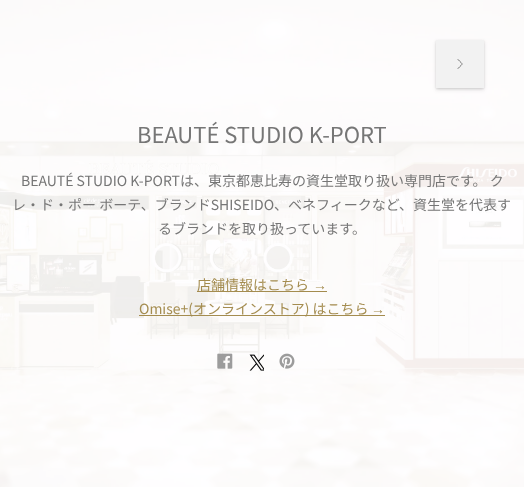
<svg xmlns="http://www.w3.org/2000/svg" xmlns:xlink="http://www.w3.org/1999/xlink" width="524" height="487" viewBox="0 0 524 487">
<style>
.cls-1{font:22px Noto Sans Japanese;fill:#767676}
.cls-2{font:14px Noto Sans Japanese;fill:#767676}
.cls-3{font:14px Noto Sans Japanese;fill:#a48c4f}
.cls-4{font:14px Liberation Sans;fill:#a48c4f}
</style>
<rect width="100%" height="100%" fill="#ffffff"/>
<image xlink:href="image0.png" x="0" y="0" width="524" height="487"/>
<rect fill="#000000" fill-opacity="0.12" filter="blur(1px)" x="436" y="41" width="48" height="48"/>
<rect fill="#1a1a1a" fill-opacity="0.1" filter="blur(2px)" x="436" y="42" width="48" height="48"/>
<rect fill="#f2f2f2" x="436" y="40" width="48" height="48"/>
<path fill="none" stroke="#767676" stroke-linecap="round" stroke-linejoin="round" d="M458 59.5C463.5 65.5 463.5 62.5 458 68.5"/>
<rect fill="#a48c4f" x="197" y="291" width="130" height="1"/>
<rect fill="#a48c4f" x="139" y="315" width="246" height="1"/>
<image xlink:href="image1.png" x="217" y="353" width="16" height="16"/>
<image xlink:href="image2.png" x="249" y="354" width="15" height="17"/>
<image xlink:href="image3.png" x="279" y="353" width="16" height="16"/>
<text class="cls-1" x="137" y="143">BEAUTÉ STUDIO K-PORT</text>
<text class="cls-2" x="21" y="186">BEAUTÉ STUDIO K-PORTは、東京都恵比寿の資生堂取り扱い専門店です。 ク</text>
<text class="cls-2" x="12" y="210">レ・ド・ポー ボーテ、ブランドSHISEIDO、ベネフィークなど、資生堂を代表す</text>
<text class="cls-2" x="158" y="234">るブランドを取り扱っています。</text>
<text class="cls-3" x="197" y="290">店舗情報はこちら</text>
<text class="cls-4" x="313" y="290">→</text>
<text class="cls-3" x="139" y="314">Omise+(オンラインストア) はこちら</text>
<text class="cls-4" x="371" y="314">→</text>
</svg>
